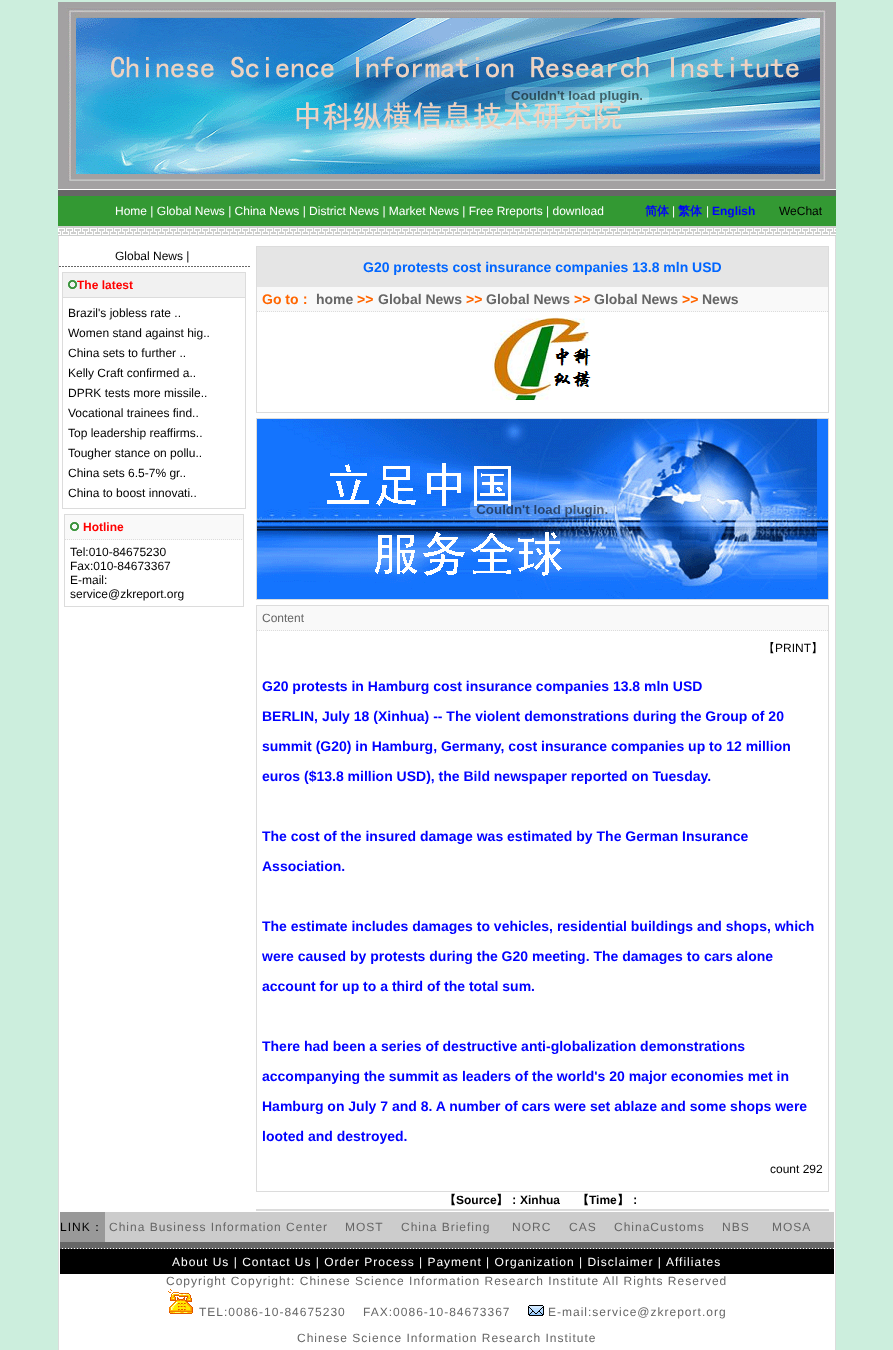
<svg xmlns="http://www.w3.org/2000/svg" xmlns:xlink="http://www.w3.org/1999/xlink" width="893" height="1350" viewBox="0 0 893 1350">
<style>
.cls-1{font:12px Liberation Sans;fill:#ffffff}
.cls-2{font:bold 12px WenQuanYi Zen Hei;fill:#0000ff}
.cls-3{font:bold 12px Liberation Sans;fill:#0000ff}
.cls-4{font:12px Liberation Sans;fill:#000000}
.cls-5{font:bold 12px Liberation Sans;fill:#ff0000}
.cls-6{font:bold 14px Liberation Sans;fill:#0066ff}
.cls-7{font:bold 14px Liberation Sans;fill:#ff6600}
.cls-8{font:bold 14px WenQuanYi Zen Hei;fill:#ff6600}
.cls-9{font:bold 14px Liberation Sans;fill:#666666}
.cls-10{font:12px Liberation Sans;fill:#666666}
.cls-11{font:500 12px WenQuanYi Zen Hei;fill:#000000}
.cls-12{font:bold 14px Liberation Sans;fill:#0000ff}
.cls-13{font:bold 12px WenQuanYi Zen Hei;fill:#000000}
.cls-14{font:bold 12px Liberation Sans;fill:#000000}
.cls-15{font:12px Liberation Sans;letter-spacing:1px;fill:#000000}
.cls-16{font:500 12px WenQuanYi Zen Hei;letter-spacing:1px;fill:#000000}
.cls-17{font:12px Liberation Sans;letter-spacing:1px;fill:#666666}
.cls-18{font:12px Liberation Sans;letter-spacing:1px;fill:#ffffff}
</style>
<rect width="100%" height="100%" fill="#cceedd"/>
<image xlink:href="image0.png" x="58" y="2" width="778" height="187"/>
<image xlink:href="image1.png" x="505" y="87" width="144" height="18"/>
<rect fill="#ffffff" x="58" y="189" width="778" height="1"/>
<rect fill="#666666" x="58" y="190" width="778" height="6"/>
<rect fill="#339933" x="58" y="196" width="778" height="30"/>
<image xlink:href="image2.png" x="58" y="226" width="778" height="10"/>
<rect fill="#ffffff" x="59" y="236" width="776" height="1114"/>
<rect fill="#dcdcdc" x="835" y="236" width="1" height="1114"/>
<rect fill="#dcdcdc" x="58" y="236" width="1" height="1114"/>
<image xlink:href="image3.png" x="59" y="266" width="191" height="1"/>
<rect fill="none" stroke="#dcdcdc" x="62.5" y="272.5" width="183" height="236"/>
<rect fill="#f1f1f1" x="63" y="273" width="182" height="24"/>
<rect fill="#dcdcdc" x="63" y="297" width="182" height="1"/>
<image xlink:href="image4.png" x="68" y="280" width="9" height="9"/>
<rect fill="none" stroke="#dcdcdc" x="64.5" y="514.5" width="179" height="92"/>
<rect fill="#f9f9f9" x="65" y="515" width="178" height="25"/>
<path fill="none" stroke="#dcdcdc" stroke-dasharray="1 1" d="M65 539.5H243"/>
<image xlink:href="image5.png" x="70" y="522" width="9" height="9"/>
<rect fill="none" stroke="#dcdcdc" x="256.5" y="246.5" width="572" height="166"/>
<rect fill="#e5e5e5" x="257" y="247" width="571" height="40"/>
<rect fill="#f9f9f9" x="257" y="287" width="571" height="25"/>
<path fill="none" stroke="#dcdcdc" stroke-dasharray="1 1" d="M257 311.5H828"/>
<image xlink:href="image6.png" x="492" y="317" width="100" height="84"/>
<rect fill="none" stroke="#dcdcdc" x="256.5" y="418.5" width="572" height="181"/>
<image xlink:href="image7.png" x="257" y="419" width="571" height="180"/>
<image xlink:href="image8.png" x="470" y="500" width="144" height="18"/>
<rect fill="none" stroke="#dcdcdc" x="256.5" y="605.5" width="572" height="586"/>
<rect fill="#f9f9f9" x="257" y="606" width="571" height="25"/>
<path fill="none" stroke="#dcdcdc" stroke-dasharray="1 1" d="M257 630.5H828"/>
<rect fill="#dcdcdc" x="256" y="1209" width="573" height="2"/>
<rect fill="#999999" x="60" y="1212" width="45" height="30"/>
<rect fill="#cccccc" x="105" y="1212" width="729" height="30"/>
<rect fill="#666666" x="60" y="1242" width="774" height="6"/>
<image xlink:href="image9.png" x="60" y="1248" width="773" height="1"/>
<rect fill="#000000" x="60" y="1249" width="774" height="25"/>
<image xlink:href="image10.png" x="168" y="1289" width="25" height="25"/>
<image xlink:href="image11.png" x="528" y="1305" width="16" height="11"/>
<text class="cls-1" x="115" y="215">Home | Global News | China News | District News | Market News | Free Rreports | download</text>
<text class="cls-2" x="645" y="215">简体</text>
<text class="cls-1" x="672" y="215">|</text>
<text class="cls-2" x="678" y="215">繁体</text>
<text class="cls-1" x="706" y="215">|</text>
<text class="cls-3" x="712" y="215">English</text>
<text class="cls-4" x="779" y="215">WeChat</text>
<text class="cls-4" x="115" y="260">Global News |</text>
<text class="cls-5" x="77" y="289">The latest</text>
<text class="cls-4"><tspan x="68" y="317">Brazil's jobless rate ..</tspan><tspan x="68" y="337">Women stand against hig..</tspan><tspan x="68" y="357">China sets to further ..</tspan><tspan x="68" y="377">Kelly Craft confirmed a..</tspan><tspan x="68" y="397">DPRK tests more missile..</tspan><tspan x="68" y="417">Vocational trainees find..</tspan><tspan x="68" y="437">Top leadership reaffirms..</tspan><tspan x="68" y="457">Tougher stance on pollu..</tspan><tspan x="68" y="477">China sets 6.5-7% gr..</tspan><tspan x="68" y="497">China to boost innovati..</tspan></text>
<text class="cls-5" x="83" y="531">Hotline</text>
<text class="cls-4"><tspan x="70" y="556">Tel:010-84675230</tspan><tspan x="70" y="570">Fax:010-84673367</tspan><tspan x="70" y="584">E-mail:</tspan><tspan x="70" y="598">service@zkreport.org</tspan></text>
<text class="cls-6" x="363" y="272">G20 protests cost insurance companies 13.8 mln USD</text>
<text class="cls-7" x="262" y="304">Go to</text>
<text class="cls-8" x="298" y="304">：</text>
<text class="cls-9" x="316" y="304">home</text>
<text class="cls-7" x="357" y="304">&gt;&gt;</text>
<text class="cls-9" x="378" y="304">Global News</text>
<text class="cls-7" x="466" y="304">&gt;&gt;</text>
<text class="cls-9" x="486" y="304">Global News</text>
<text class="cls-7" x="574" y="304">&gt;&gt;</text>
<text class="cls-9" x="594" y="304">Global News</text>
<text class="cls-7" x="682" y="304">&gt;&gt;</text>
<text class="cls-9" x="702" y="304">News</text>
<text class="cls-10" x="262" y="622">Content</text>
<text class="cls-11" x="763" y="652">【</text>
<text class="cls-4" x="775" y="652">PRINT</text>
<text class="cls-11" x="811" y="652">】</text>
<text class="cls-12" x="262" y="691">G20 protests in Hamburg cost insurance companies 13.8 mln USD</text>
<text class="cls-12" x="262" y="721">BERLIN, July 18 (Xinhua) -- The violent demonstrations during the Group of 20</text>
<text class="cls-12" x="262" y="751">summit (G20) in Hamburg, Germany, cost insurance companies up to 12 million</text>
<text class="cls-12" x="262" y="781">euros ($13.8 million USD), the Bild newspaper reported on Tuesday.</text>
<text class="cls-12" x="262" y="841">The cost of the insured damage was estimated by The German Insurance</text>
<text class="cls-12" x="262" y="871">Association.</text>
<text class="cls-12" x="262" y="931">The estimate includes damages to vehicles, residential buildings and shops, which</text>
<text class="cls-12" x="262" y="961">were caused by protests during the G20 meeting. The damages to cars alone</text>
<text class="cls-12" x="262" y="991">account for up to a third of the total sum.</text>
<text class="cls-12" x="262" y="1051">There had been a series of destructive anti-globalization demonstrations</text>
<text class="cls-12" x="262" y="1081">accompanying the summit as leaders of the world's 20 major economies met in</text>
<text class="cls-12" x="262" y="1111">Hamburg on July 7 and 8. A number of cars were set ablaze and some shops were</text>
<text class="cls-12" x="262" y="1141">looted and destroyed.</text>
<text class="cls-4" x="770" y="1173">count 292</text>
<text class="cls-13" x="444" y="1204">【</text>
<text class="cls-14" x="456" y="1204">Source</text>
<text class="cls-13" x="496" y="1204">】：</text>
<text class="cls-14" x="520" y="1204">Xinhua</text>
<text class="cls-13" x="577" y="1204">【</text>
<text class="cls-14" x="589" y="1204">Time</text>
<text class="cls-13" x="617" y="1204">】：</text>
<text class="cls-15" x="60" y="1231">LINK</text>
<text class="cls-16" x="91" y="1231">：</text>
<text class="cls-17" x="109" y="1231">China Business Information Center</text>
<text class="cls-17" x="345" y="1231">MOST</text>
<text class="cls-17" x="401" y="1231">China Briefing</text>
<text class="cls-17" x="512" y="1231">NORC</text>
<text class="cls-17" x="569" y="1231">CAS</text>
<text class="cls-17" x="614" y="1231">ChinaCustoms</text>
<text class="cls-17" x="722" y="1231">NBS</text>
<text class="cls-17" x="772" y="1231">MOSA</text>
<text class="cls-18" x="172" y="1266">About Us | Contact Us | Order Process | Payment | Organization | Disclaimer |</text>
<text class="cls-18" x="666" y="1266">Affiliates</text>
<text class="cls-17" x="166" y="1285">Copyright Copyright: Chinese Science Information Research Institute All Rights Reserved</text>
<text class="cls-17" xml:space="preserve" x="199" y="1316">TEL:0086-10-84675230    FAX:0086-10-84673367</text>
<text class="cls-17" x="548" y="1316">E-mail:service@zkreport.org</text>
<text class="cls-17" x="297" y="1342">Chinese Science Information Research Institute</text>
</svg>
